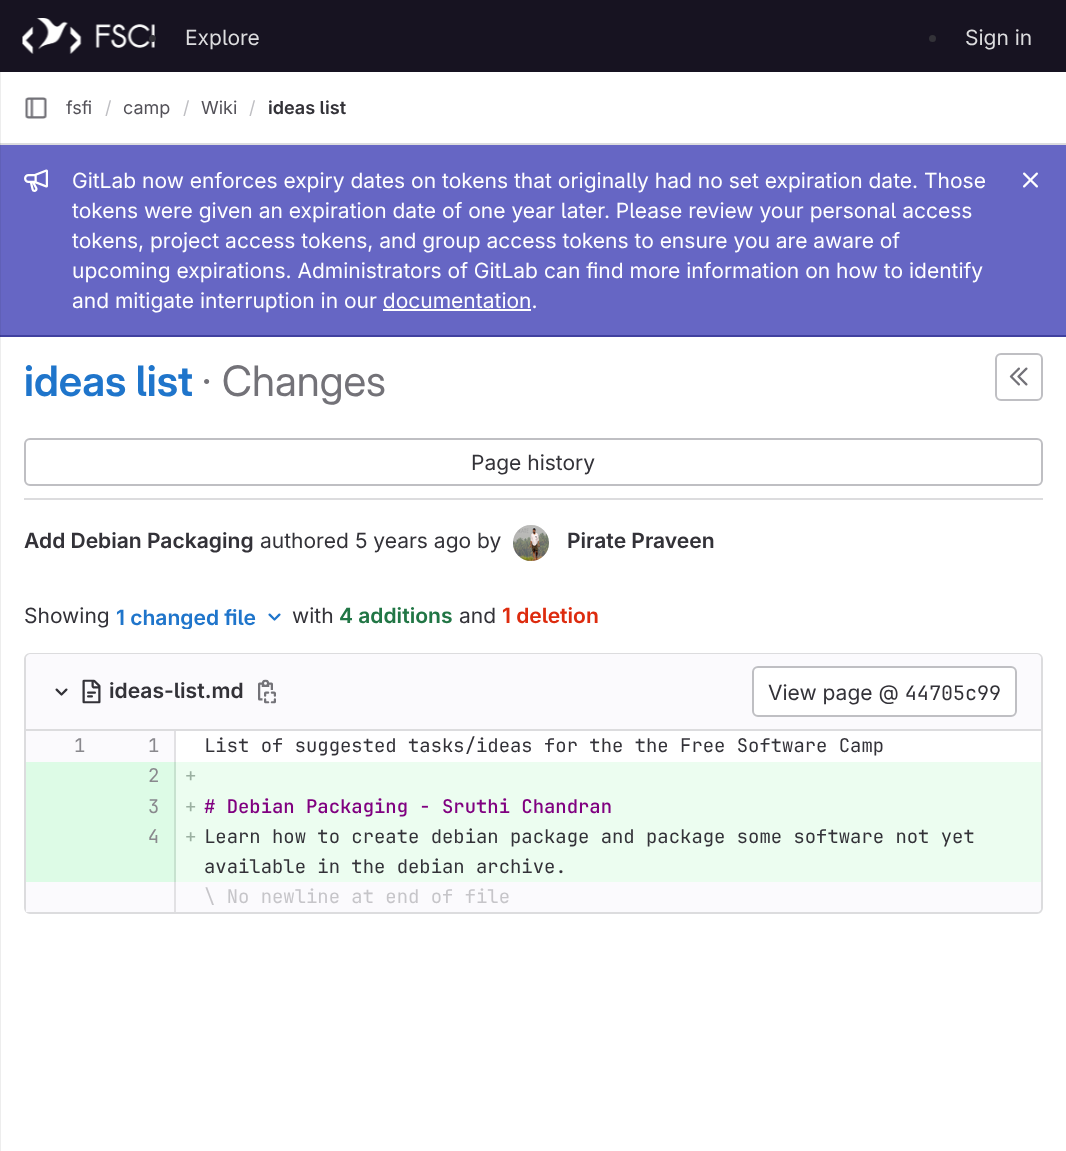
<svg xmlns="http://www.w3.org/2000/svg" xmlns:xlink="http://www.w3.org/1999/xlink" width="1066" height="1151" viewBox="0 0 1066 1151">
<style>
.cls-1{font:21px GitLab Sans;fill:#dcdcde}
.cls-2{font:18px GitLab Sans;fill:#535158}
.cls-3{font:18px GitLab Sans;fill:#bfbfc3}
.cls-4{font:600 18px GitLab Sans;fill:#333238}
.cls-5{font:21px GitLab Sans;fill:#ffffff}
.cls-6{font:600 42px 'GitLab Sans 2';fill:#1f75cb}
.cls-7{font:42px 'GitLab Sans 2';fill:#737278}
.cls-8{font:21px GitLab Sans;fill:#333238}
.cls-9{font:600 21px GitLab Sans;fill:#333238}
.cls-10{font:600 21px GitLab Sans;fill:#1f75cb}
.cls-11{font:600 21px GitLab Sans;fill:#217645}
.cls-12{font:600 21px GitLab Sans;fill:#dd2b0e}
.cls-13{font:20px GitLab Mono;fill:#333238}
.cls-14{font:18.9px GitLab Mono;fill:#89888d}
.cls-15{font:18.9px GitLab Mono;fill:#333238}
.cls-16{font:18.9px GitLab Mono;fill:#9bb0a1}
.cls-17{font:600 18.9px GitLab Mono;fill:#800080}
.cls-18{font:18.9px GitLab Mono;fill:#c6c5c9}
</style>
<defs>
<clipPath id="clip1"><rect x="116" y="605" width="141" height="24"/></clipPath>
</defs>
<rect width="100%" height="100%" fill="#ffffff"/>
<rect fill="#ededed" x="0" y="72" width="1" height="1079"/>
<rect fill="#171321" x="0" y="0" width="1066" height="72"/>
<image xlink:href="image0.png" x="22" y="18" width="133" height="36"/>
<circle fill="#333238" cx="152.5" cy="38.5" r="3.5"/>
<circle fill="#333238" cx="932.5" cy="38.5" r="3.5"/>
<rect fill="#6060b7" x="0" y="144" width="1" height="192"/>
<rect fill="#dcdcde" x="0" y="143" width="1066" height="2"/>
<rect fill="#cdcdcf" x="0" y="143" width="1" height="2"/>
<image xlink:href="image1.png" x="25" y="97" width="22" height="22"/>
<rect fill="#6666c4" x="1" y="145" width="1065" height="190"/>
<rect fill="#41419f" x="0" y="335" width="1066" height="2"/>
<rect fill="#3e3e95" x="0" y="335" width="1" height="2"/>
<image xlink:href="image2.png" x="24" y="169" width="24" height="23"/>
<rect fill="#ffffff" x="383" y="309" width="148" height="2"/>
<image xlink:href="image3.png" x="1023" y="172" width="15" height="16"/>
<rect fill="#dcdcde" x="24" y="498" width="1019" height="2"/>
<rect fill="none" stroke="#bfbfc3" stroke-width="2" x="996" y="354" width="46" height="46" rx="5"/>
<image xlink:href="image4.png" x="1009" y="367" width="19" height="19"/>
<rect fill="none" stroke="#bfbfc3" stroke-width="2" x="25" y="439" width="1017" height="46" rx="5"/>
<circle fill="none" stroke="#e9e9e9" stroke-width="2" cx="531" cy="543" r="17"/>
<image xlink:href="image5.png" x="513" y="525" width="36" height="36"/>
<image xlink:href="image6.png" x="268" y="613" width="13" height="8"/>
<rect fill="none" stroke="#dcdcde" stroke-width="2" x="25" y="654" width="1017" height="259" rx="5"/>
<path fill="#fbfafd" d="M31 654H1036C1039 654 1041 656 1041 659V731H26V659C26 656 28 654 31 654Z"/>
<rect fill="#dcdcde" x="26" y="729" width="1015" height="2"/>
<image xlink:href="image7.png" x="55" y="688" width="13" height="8"/>
<image xlink:href="image8.png" x="82" y="679" width="19" height="25"/>
<image xlink:href="image9.png" x="258" y="679" width="18" height="25"/>
<rect fill="#ffffff" stroke="#bfbfc3" stroke-width="2" x="753" y="667" width="263" height="49" rx="5"/>
<rect fill="#fbfafd" x="26" y="731" width="148" height="31"/>
<rect fill="#e2e1e4" x="174" y="731" width="2" height="31"/>
<rect fill="#ddfbe6" x="26" y="762" width="148" height="30"/>
<rect fill="#c7e2cf" x="174" y="762" width="2" height="120"/>
<rect fill="#ecfdf0" x="176" y="762" width="865" height="120"/>
<rect fill="#ddfbe6" x="26" y="792" width="148" height="30"/>
<rect fill="#ddfbe6" x="26" y="822" width="148" height="60"/>
<rect fill="#fbfafd" x="26" y="882" width="148" height="30"/>
<rect fill="#e2e1e4" x="174" y="882" width="2" height="30"/>
<path fill="#fbfafd" d="M176 882H1041V907C1041 910 1039 912 1036 912H176Z"/>
<text class="cls-1" x="185" y="45">Explore</text>
<text class="cls-1" x="965" y="45">Sign in</text>
<text class="cls-2" x="66" y="114">fsfi</text>
<text class="cls-3" x="105" y="114">/</text>
<text class="cls-2" x="123" y="114">camp</text>
<text class="cls-3" x="183" y="114">/</text>
<text class="cls-2" x="201" y="114">Wiki</text>
<text class="cls-3" x="249" y="114">/</text>
<text class="cls-4" x="268" y="114">ideas list</text>
<text class="cls-5"><tspan x="72" y="188">GitLab now enforces expiry dates on tokens that originally had no set expiration date. Those</tspan><tspan x="72" y="218">tokens were given an expiration date of one year later. Please review your personal access</tspan><tspan x="72" y="248">tokens, project access tokens, and group access tokens to ensure you are aware of</tspan><tspan x="72" y="278">upcoming expirations. Administrators of GitLab can find more information on how to identify</tspan><tspan x="72" y="308">and mitigate interruption in our documentation.</tspan></text>
<text class="cls-6" x="24" y="396">ideas list</text>
<text class="cls-7" x="202" y="396">· Changes</text>
<text class="cls-8" x="471" y="470">Page history</text>
<text class="cls-9" x="24" y="548">Add Debian Packaging</text>
<text class="cls-8" x="260" y="548">authored 5 years ago by</text>
<text class="cls-9" x="567" y="548">Pirate Praveen</text>
<text class="cls-8" x="24" y="623">Showing</text>
<g clip-path="url(#clip1)">
<text class="cls-10" x="116" y="625">1 changed file</text>
</g>
<text class="cls-8" x="292" y="623">with</text>
<text class="cls-11" x="339" y="623">4 additions</text>
<text class="cls-8" x="459" y="623">and</text>
<text class="cls-12" x="502" y="623">1 deletion</text>
<text class="cls-9" x="109" y="698">ideas-list.md</text>
<text class="cls-8" x="768" y="700">View page @</text>
<text class="cls-13" x="905" y="700">44705c99</text>
<text class="cls-14" x="74" y="752">1</text>
<text class="cls-14" x="148" y="752">1</text>
<text class="cls-15" x="204" y="752">List of suggested tasks/ideas for the the Free Software Camp</text>
<text class="cls-14" x="148" y="782">2</text>
<text class="cls-16"><tspan x="185" y="782">+</tspan><tspan x="185" y="813">+</tspan></text>
<text class="cls-17" x="204" y="813"># Debian Packaging - Sruthi Chandran</text>
<text class="cls-14" x="148" y="813">3</text>
<text class="cls-16" x="185" y="843">+</text>
<text class="cls-15"><tspan x="204" y="843">Learn how to create debian package and package some software not yet</tspan><tspan x="204" y="873">available in the debian archive.</tspan></text>
<text class="cls-14" x="148" y="843">4</text>
<text class="cls-18" x="204" y="903">\ No newline at end of file</text>
</svg>
